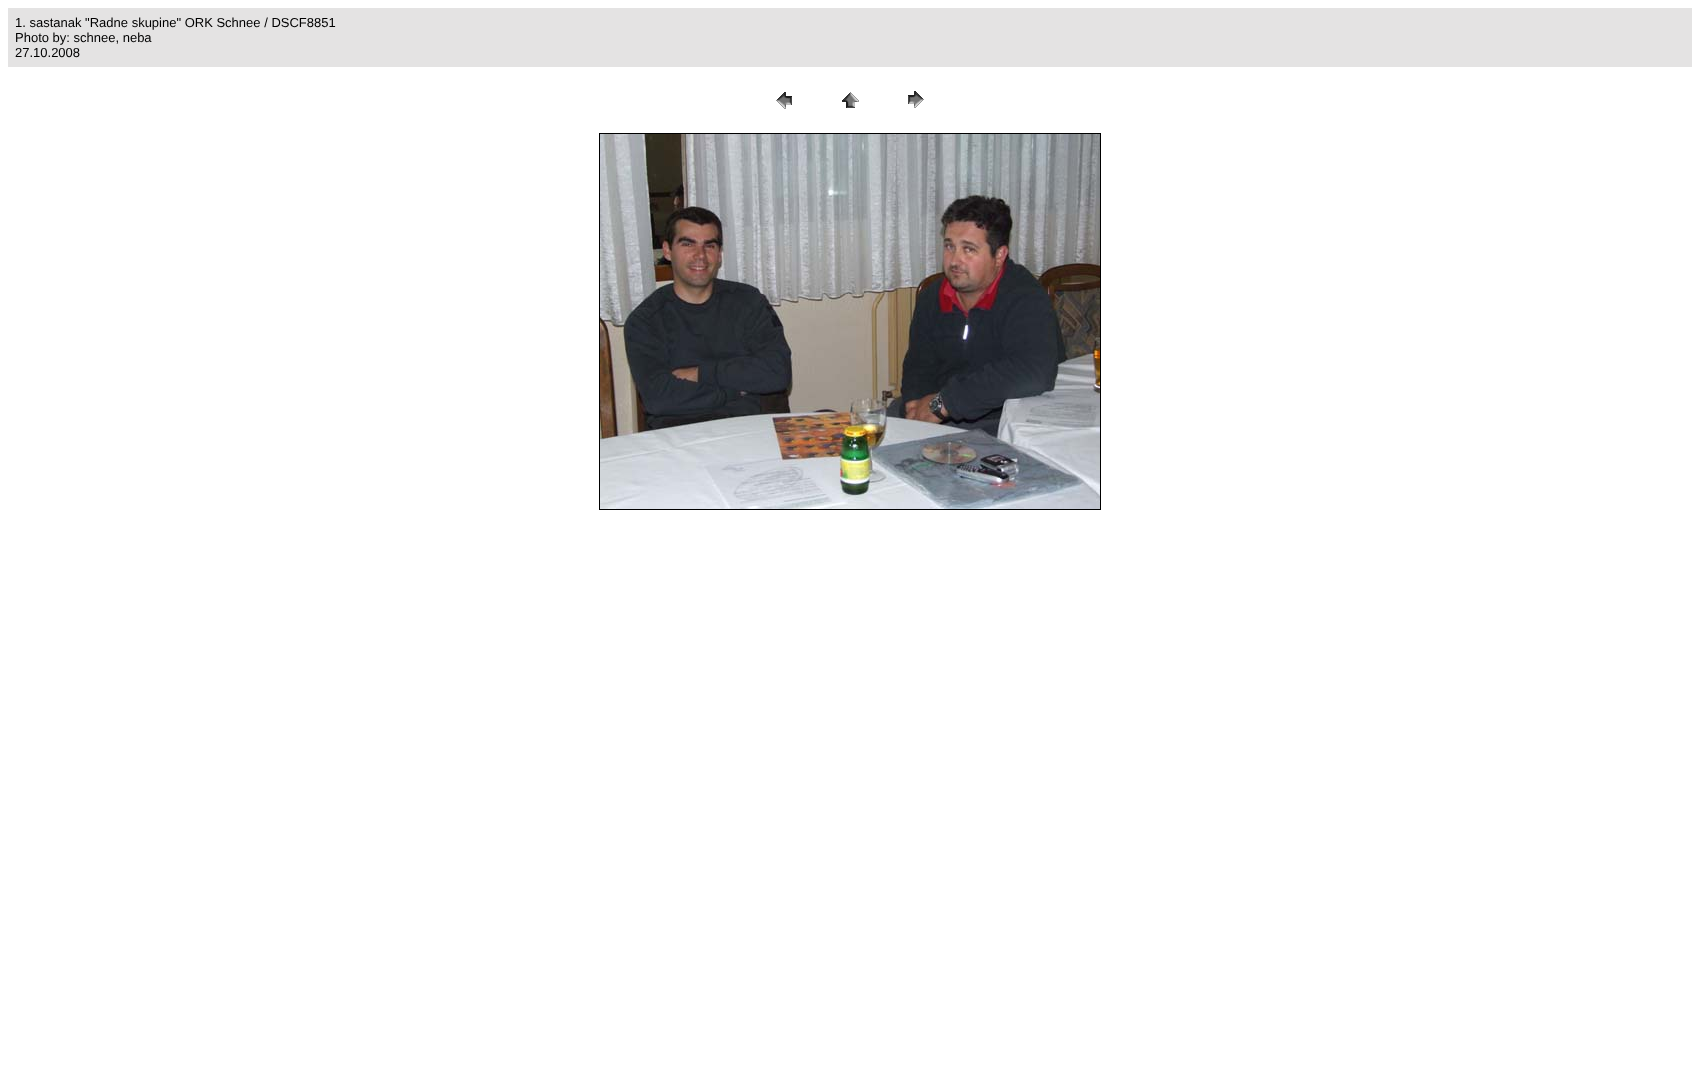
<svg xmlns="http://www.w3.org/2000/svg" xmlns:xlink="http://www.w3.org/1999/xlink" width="1700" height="1074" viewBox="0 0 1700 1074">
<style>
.cls-1{font:13px Liberation Sans;fill:#000000}
</style>
<rect width="100%" height="100%" fill="#ffffff"/>
<rect fill="#e4e3e3" x="8" y="8" width="1684" height="59"/>
<image xlink:href="image0.png" x="776" y="92" width="16" height="17"/>
<image xlink:href="image1.png" x="842" y="92" width="17" height="16"/>
<image xlink:href="image2.png" x="908" y="91" width="16" height="17"/>
<rect fill="none" stroke="#000000" x="599.5" y="133.5" width="501" height="376"/>
<image xlink:href="image3.png" x="600" y="134" width="500" height="375"/>
<text class="cls-1"><tspan x="15" y="27">1. sastanak "Radne skupine" ORK Schnee / DSCF8851</tspan><tspan x="15" y="42">Photo by: schnee, neba</tspan><tspan x="15" y="57">27.10.2008</tspan></text>
</svg>
